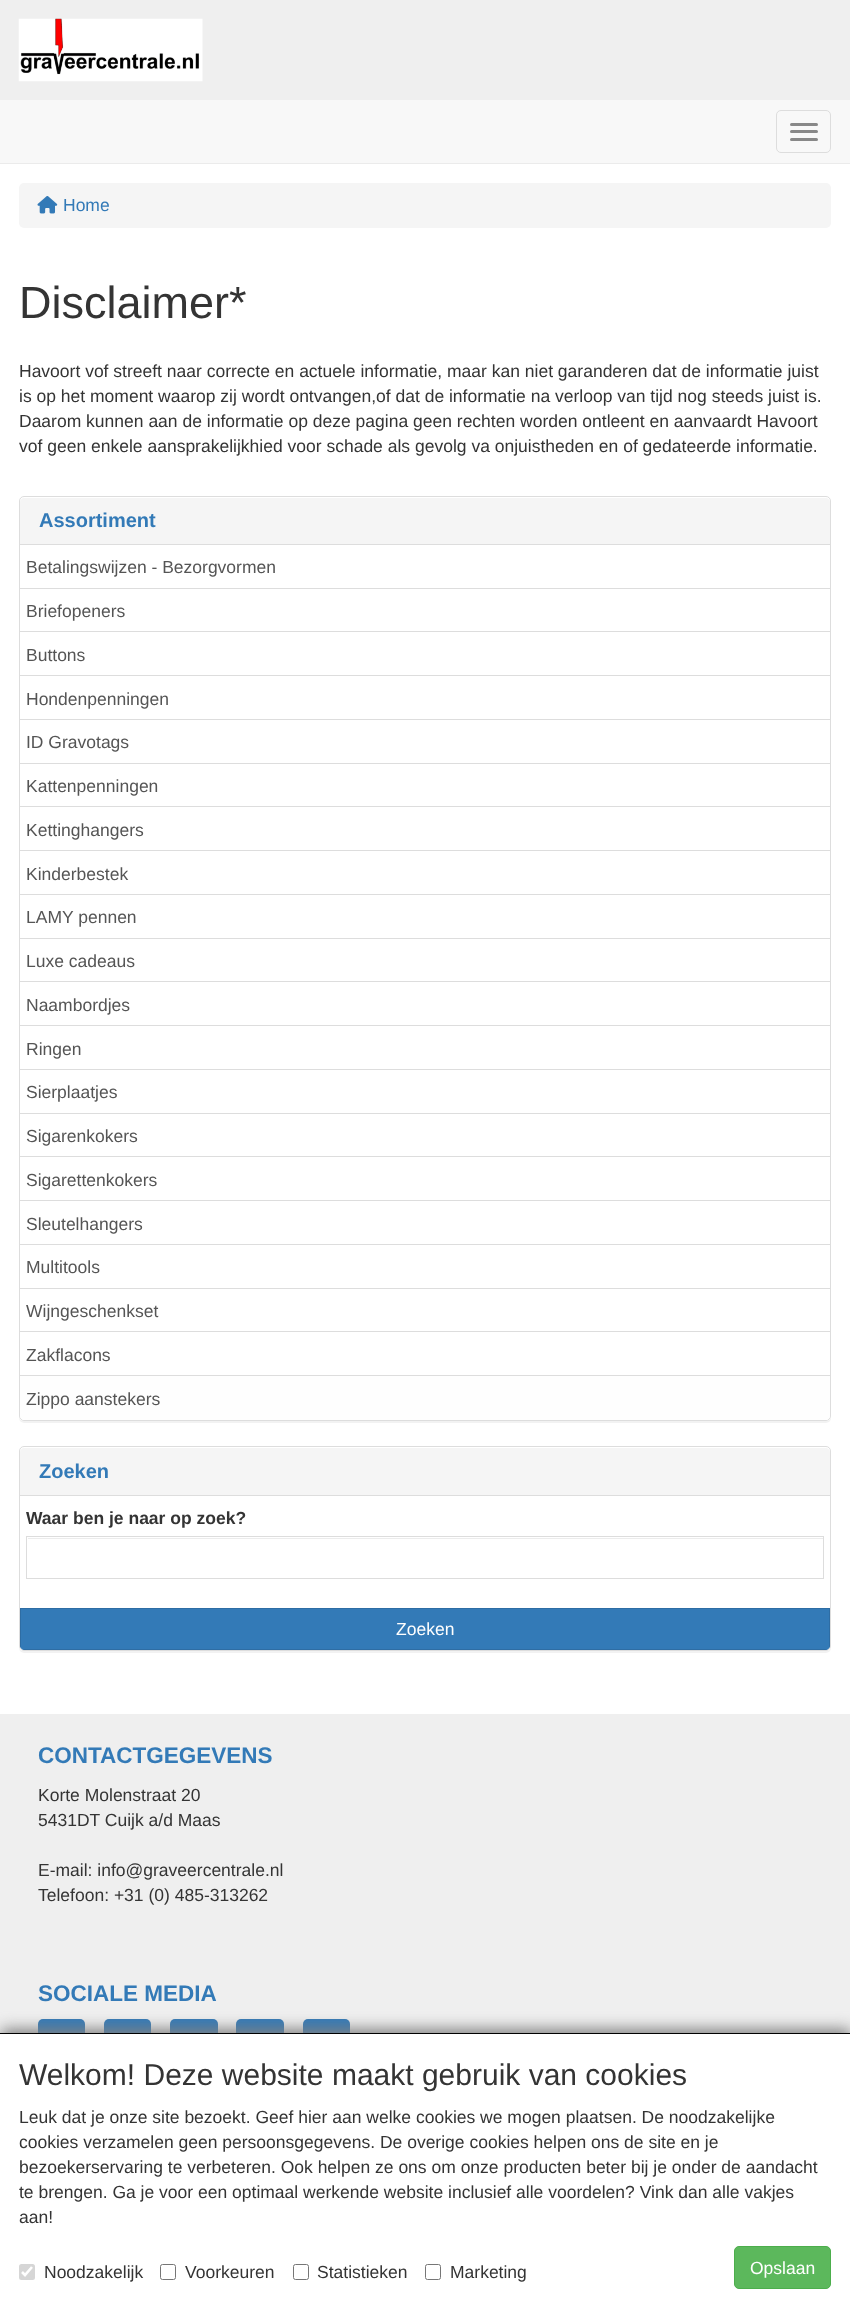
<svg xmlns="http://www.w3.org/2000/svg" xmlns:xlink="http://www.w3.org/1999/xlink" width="850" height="2306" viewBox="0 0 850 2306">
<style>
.cls-1{font:17.5px Liberation Sans;fill:#337ab7}
.cls-2{font:45px Liberation Sans;fill:#343434}
.cls-3{font:17.5px Liberation Sans;fill:#343434}
.cls-4{font:bold 20px Liberation Sans;fill:#337ab7}
.cls-5{font:17.5px Liberation Sans;fill:#555555}
.cls-6{font:bold 17.5px Liberation Sans;fill:#343434}
.cls-7{font:17.5px Liberation Sans;fill:#fefefe}
.cls-8{font:bold 22.5px Liberation Sans;fill:#337ab7}
.cls-9{font:30px Liberation Sans;fill:#343434}
</style>
<defs>
<clipPath id="clip1"><path d="M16 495H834V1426H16ZM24 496H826C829 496 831 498 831 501V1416C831 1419 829 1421 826 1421H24C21 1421 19 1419 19 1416V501C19 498 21 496 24 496Z" clip-rule="evenodd"/></clipPath>
<clipPath id="clip2"><path d="M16 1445H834V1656H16ZM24 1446H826C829 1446 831 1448 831 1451V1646C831 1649 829 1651 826 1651H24C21 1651 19 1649 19 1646V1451C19 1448 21 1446 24 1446Z" clip-rule="evenodd"/></clipPath>
</defs>
<rect width="100%" height="100%" fill="#ffffff"/>
<rect fill="#efefef" x="0" y="0" width="850" height="100"/>
<image xlink:href="image0.png" x="18" y="18" width="185" height="64"/>
<rect fill="#f8f8f8" x="0" y="100" width="850" height="63"/>
<rect fill="#ebebeb" x="0" y="163" width="850" height="1"/>
<rect fill="none" stroke="#dddddd" x="776.5" y="110.5" width="54" height="42" rx="4.5"/>
<rect fill="#888888" x="790" y="123" width="28" height="3" rx="1.5"/>
<rect fill="#888888" x="790" y="130" width="28" height="3" rx="1.5"/>
<rect fill="#888888" x="790" y="138" width="28" height="3" rx="1.5"/>
<rect fill="#f5f5f5" x="19" y="183" width="812" height="45" rx="5"/>
<image xlink:href="image1.png" x="37" y="196" width="21" height="18"/>
<g clip-path="url(#clip1)">
<rect fill="#000000" fill-opacity="0.05" filter="blur(0.5px)" x="19" y="498" width="812" height="925" rx="5"/>
</g>
<rect fill="none" stroke="#dddddd" x="19.5" y="496.5" width="811" height="924" rx="4.5"/>
<path fill="#f5f5f5" d="M24 498H826C828 498 830 500 830 502V545H20V502C20 500 22 498 24 498Z"/>
<rect fill="#dddddd" x="20" y="544" width="810" height="1"/>
<rect fill="#dddddd" x="20" y="588" width="810" height="1"/>
<rect fill="#dddddd" x="20" y="631" width="810" height="1"/>
<rect fill="#dddddd" x="20" y="675" width="810" height="1"/>
<rect fill="#dddddd" x="20" y="719" width="810" height="1"/>
<rect fill="#dddddd" x="20" y="763" width="810" height="1"/>
<rect fill="#dddddd" x="20" y="806" width="810" height="1"/>
<rect fill="#dddddd" x="20" y="850" width="810" height="1"/>
<rect fill="#dddddd" x="20" y="894" width="810" height="1"/>
<rect fill="#dddddd" x="20" y="938" width="810" height="1"/>
<rect fill="#dddddd" x="20" y="981" width="810" height="1"/>
<rect fill="#dddddd" x="20" y="1025" width="810" height="1"/>
<rect fill="#dddddd" x="20" y="1069" width="810" height="1"/>
<rect fill="#dddddd" x="20" y="1113" width="810" height="1"/>
<rect fill="#dddddd" x="20" y="1156" width="810" height="1"/>
<rect fill="#dddddd" x="20" y="1200" width="810" height="1"/>
<rect fill="#dddddd" x="20" y="1244" width="810" height="1"/>
<rect fill="#dddddd" x="20" y="1288" width="810" height="1"/>
<rect fill="#dddddd" x="20" y="1331" width="810" height="1"/>
<path fill="#fefefe" d="M20 1375H830V1415C830 1418 828 1420 825 1420H25C22 1420 20 1418 20 1415Z"/>
<rect fill="#dddddd" x="20" y="1375" width="810" height="1"/>
<g clip-path="url(#clip2)">
<rect fill="#000000" fill-opacity="0.05" filter="blur(0.5px)" x="19" y="1448" width="812" height="205" rx="5"/>
</g>
<rect fill="none" stroke="#dddddd" x="19.5" y="1446.5" width="811" height="204" rx="4.5"/>
<path fill="#f5f5f5" d="M24 1448H826C828 1448 830 1450 830 1452V1496H20V1452C20 1450 22 1448 24 1448Z"/>
<rect fill="#dddddd" x="20" y="1495" width="810" height="1"/>
<rect fill="#ececec" x="28" y="1538" width="795" height="1"/>
<rect fill="none" stroke="#dddddd" x="26.5" y="1536.5" width="797" height="42"/>
<path fill="#337ab7" d="M20 1608H830V1645C830 1648 828 1650 825 1650H25C22 1650 20 1648 20 1645Z"/>
<path fill="#2e6da4" fill-rule="evenodd" d="M21 1609H829V1648C830 1647 830 1646 830 1645V1608H20V1645C20 1646 20 1647 21 1648ZM825 1650L828 1649H22L25 1650Z"/>
<rect fill="#efefef" x="0" y="1714" width="850" height="319"/>
<rect fill="#337ab7" x="38" y="2019" width="47" height="47" rx="5"/>
<rect fill="#337ab7" x="104" y="2019" width="47" height="47" rx="5"/>
<rect fill="#337ab7" x="170" y="2019" width="48" height="47" rx="5"/>
<rect fill="#337ab7" x="236" y="2019" width="48" height="47" rx="5"/>
<rect fill="#337ab7" x="303" y="2019" width="47" height="47" rx="5"/>
<rect fill="#808080" filter="blur(7.5px)" x="1" y="2029" width="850" height="274"/>
<rect fill="#ffffff" x="0" y="2034" width="850" height="272"/>
<rect fill="#000000" x="0" y="2033" width="850" height="1"/>
<rect fill="#d6d6d6" x="19" y="2264" width="16" height="16" rx="2.5"/>
<path fill="none" stroke="#ffffff" stroke-width="2.6" d="M22 2272L25 2275L32 2267"/>
<rect fill="none" stroke="#767676" x="160.5" y="2264.5" width="15" height="15" rx="2"/>
<rect fill="none" stroke="#767676" x="293.5" y="2264.5" width="15" height="15" rx="2"/>
<rect fill="none" stroke="#767676" x="425.5" y="2264.5" width="15" height="15" rx="2"/>
<rect fill="#5cb85c" stroke="#4cae4c" x="734.5" y="2246.5" width="96" height="42" rx="4.5"/>
<text class="cls-1" x="63" y="211">Home</text>
<text class="cls-2" x="19" y="318">Disclaimer*</text>
<text class="cls-3"><tspan x="19" y="377">Havoort vof streeft naar correcte en actuele informatie, maar kan niet garanderen dat de informatie juist</tspan><tspan x="19" y="402">is op het moment waarop zij wordt ontvangen,of dat de informatie na verloop van tijd nog steeds juist is.</tspan><tspan x="19" y="427">Daarom kunnen aan de informatie op deze pagina geen rechten worden ontleent en aanvaardt Havoort</tspan><tspan x="19" y="452">vof geen enkele aansprakelijkhied voor schade als gevolg va onjuistheden en of gedateerde informatie.</tspan></text>
<text class="cls-4" x="39" y="527">Assortiment</text>
<text class="cls-5" x="26" y="573">Betalingswijzen - Bezorgvormen</text>
<text class="cls-5" x="26" y="617">Briefopeners</text>
<text class="cls-5" x="26" y="661">Buttons</text>
<text class="cls-5" x="26" y="705">Hondenpenningen</text>
<text class="cls-5" x="26" y="748">ID Gravotags</text>
<text class="cls-5" x="26" y="792">Kattenpenningen</text>
<text class="cls-5" x="26" y="836">Kettinghangers</text>
<text class="cls-5" x="26" y="880">Kinderbestek</text>
<text class="cls-5" x="26" y="923">LAMY pennen</text>
<text class="cls-5" x="26" y="967">Luxe cadeaus</text>
<text class="cls-5" x="26" y="1011">Naambordjes</text>
<text class="cls-5" x="26" y="1055">Ringen</text>
<text class="cls-5" x="26" y="1098">Sierplaatjes</text>
<text class="cls-5" x="26" y="1142">Sigarenkokers</text>
<text class="cls-5" x="26" y="1186">Sigarettenkokers</text>
<text class="cls-5" x="26" y="1230">Sleutelhangers</text>
<text class="cls-5" x="26" y="1273">Multitools</text>
<text class="cls-5" x="26" y="1317">Wijngeschenkset</text>
<text class="cls-5" x="26" y="1361">Zakflacons</text>
<text class="cls-5" x="26" y="1405">Zippo aanstekers</text>
<text class="cls-4" x="39" y="1478">Zoeken</text>
<text class="cls-6" x="26" y="1524">Waar ben je naar op zoek?</text>
<text class="cls-7" x="396" y="1635">Zoeken</text>
<text class="cls-8" x="38" y="1763">CONTACTGEGEVENS</text>
<text class="cls-3"><tspan x="38" y="1801">Korte Molenstraat 20</tspan><tspan x="38" y="1826">5431DT Cuijk a/d Maas</tspan></text>
<text class="cls-3"><tspan x="38" y="1876">E-mail: info@graveercentrale.nl</tspan><tspan x="38" y="1901">Telefoon: +31 (0) 485-313262</tspan></text>
<text class="cls-8" x="38" y="2001">SOCIALE MEDIA</text>
<text class="cls-9" x="19" y="2085">Welkom! Deze website maakt gebruik van cookies</text>
<text class="cls-3"><tspan x="19" y="2123">Leuk dat je onze site bezoekt. Geef hier aan welke cookies we mogen plaatsen. De noodzakelijke</tspan><tspan x="19" y="2148">cookies verzamelen geen persoonsgegevens. De overige cookies helpen ons de site en je</tspan><tspan x="19" y="2173">bezoekerservaring te verbeteren. Ook helpen ze ons om onze producten beter bij je onder de aandacht</tspan><tspan x="19" y="2198">te brengen. Ga je voor een optimaal werkende website inclusief alle voordelen? Vink dan alle vakjes</tspan><tspan x="19" y="2223">aan!</tspan></text>
<text class="cls-3" x="44" y="2278">Noodzakelijk</text>
<text class="cls-3" x="185" y="2278">Voorkeuren</text>
<text class="cls-3" x="317" y="2278">Statistieken</text>
<text class="cls-3" x="450" y="2278">Marketing</text>
<text class="cls-7" x="750" y="2274">Opslaan</text>
</svg>
